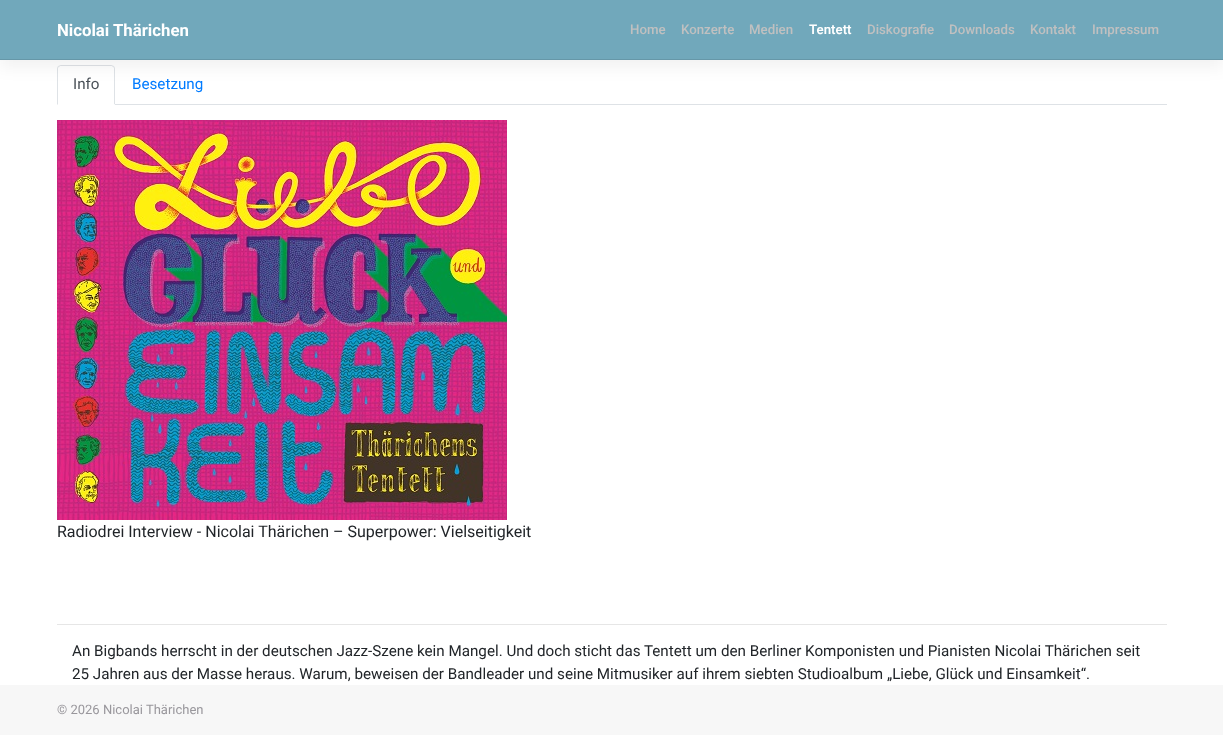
<svg xmlns="http://www.w3.org/2000/svg" xmlns:xlink="http://www.w3.org/1999/xlink" width="1223" height="735" viewBox="0 0 1223 735">
<style>
.cls-1{font:bold 16.75px Roboto;fill:#ffffff}
.cls-2{font:500 13.25px Roboto;fill:#c0c0c0}
.cls-3{font:600 13.25px Roboto;fill:#ffffff}
.cls-4{font:15.2px Roboto;fill:#495057}
.cls-5{font:15.2px Roboto;fill:#007bff}
.cls-6{font:16px Roboto;fill:#212529}
.cls-7{font:15.2px Roboto;fill:#212529}
.cls-8{font:13px Roboto;fill:#99979c}
</style>
<rect width="100%" height="100%" fill="#ffffff"/>
<path fill="#dee2e6" d="M61 65L58 66L59 67L60 66H112L113 67L114 66L111 65Z"/>
<path fill="#dee2e6" d="M115 105V69C115 68 114.5 67 114 66L113 67C114 67 114 68 114 69V104Z"/>
<path fill="#ffffff" d="M115 105L114 104H58L57 105Z"/>
<path fill="#dee2e6" d="M57 105L58 104V69C58 68 58 67 59 67L58 66C57.5 67 57 68 57 69Z"/>
<rect fill="#000000" fill-opacity="0.05" filter="blur(7.5px)" x="0" y="8" width="1223" height="60"/>
<rect fill="#71a8bb" x="0" y="0" width="1223" height="59"/>
<rect fill="#6697a8" x="0" y="59" width="1223" height="1"/>
<rect fill="#dee2e6" x="115" y="104" width="1052" height="1"/>
<image xlink:href="image0.png" x="57" y="120" width="450" height="400"/>
<rect fill="#e6e6e6" x="57" y="624" width="1110" height="1"/>
<rect fill="#f7f7f7" x="0" y="685" width="1223" height="50"/>
<text class="cls-1" x="57" y="36">Nicolai Thärichen</text>
<text class="cls-2" x="630" y="34">Home</text>
<text class="cls-2" x="681" y="34">Konzerte</text>
<text class="cls-2" x="749" y="34">Medien</text>
<text class="cls-3" x="809" y="34">Tentett</text>
<text class="cls-2" x="867" y="34">Diskografie</text>
<text class="cls-2" x="949" y="34">Downloads</text>
<text class="cls-2" x="1030" y="34">Kontakt</text>
<text class="cls-2" x="1092" y="34">Impressum</text>
<text class="cls-4" x="73" y="89">Info</text>
<text class="cls-5" x="132" y="89">Besetzung</text>
<text class="cls-6" x="57" y="537">Radiodrei Interview - Nicolai Thärichen – Superpower: Vielseitigkeit</text>
<text class="cls-7"><tspan x="72" y="656">An Bigbands herrscht in der deutschen Jazz-Szene kein Mangel. Und doch sticht das Tentett um den Berliner Komponisten und Pianisten Nicolai Thärichen seit</tspan><tspan x="72" y="679">25 Jahren aus der Masse heraus. Warum, beweisen der Bandleader und seine Mitmusiker auf ihrem siebten Studioalbum „Liebe, Glück und Einsamkeit“.</tspan></text>
<text class="cls-8" x="57" y="714">© 2026 Nicolai Thärichen</text>
</svg>
